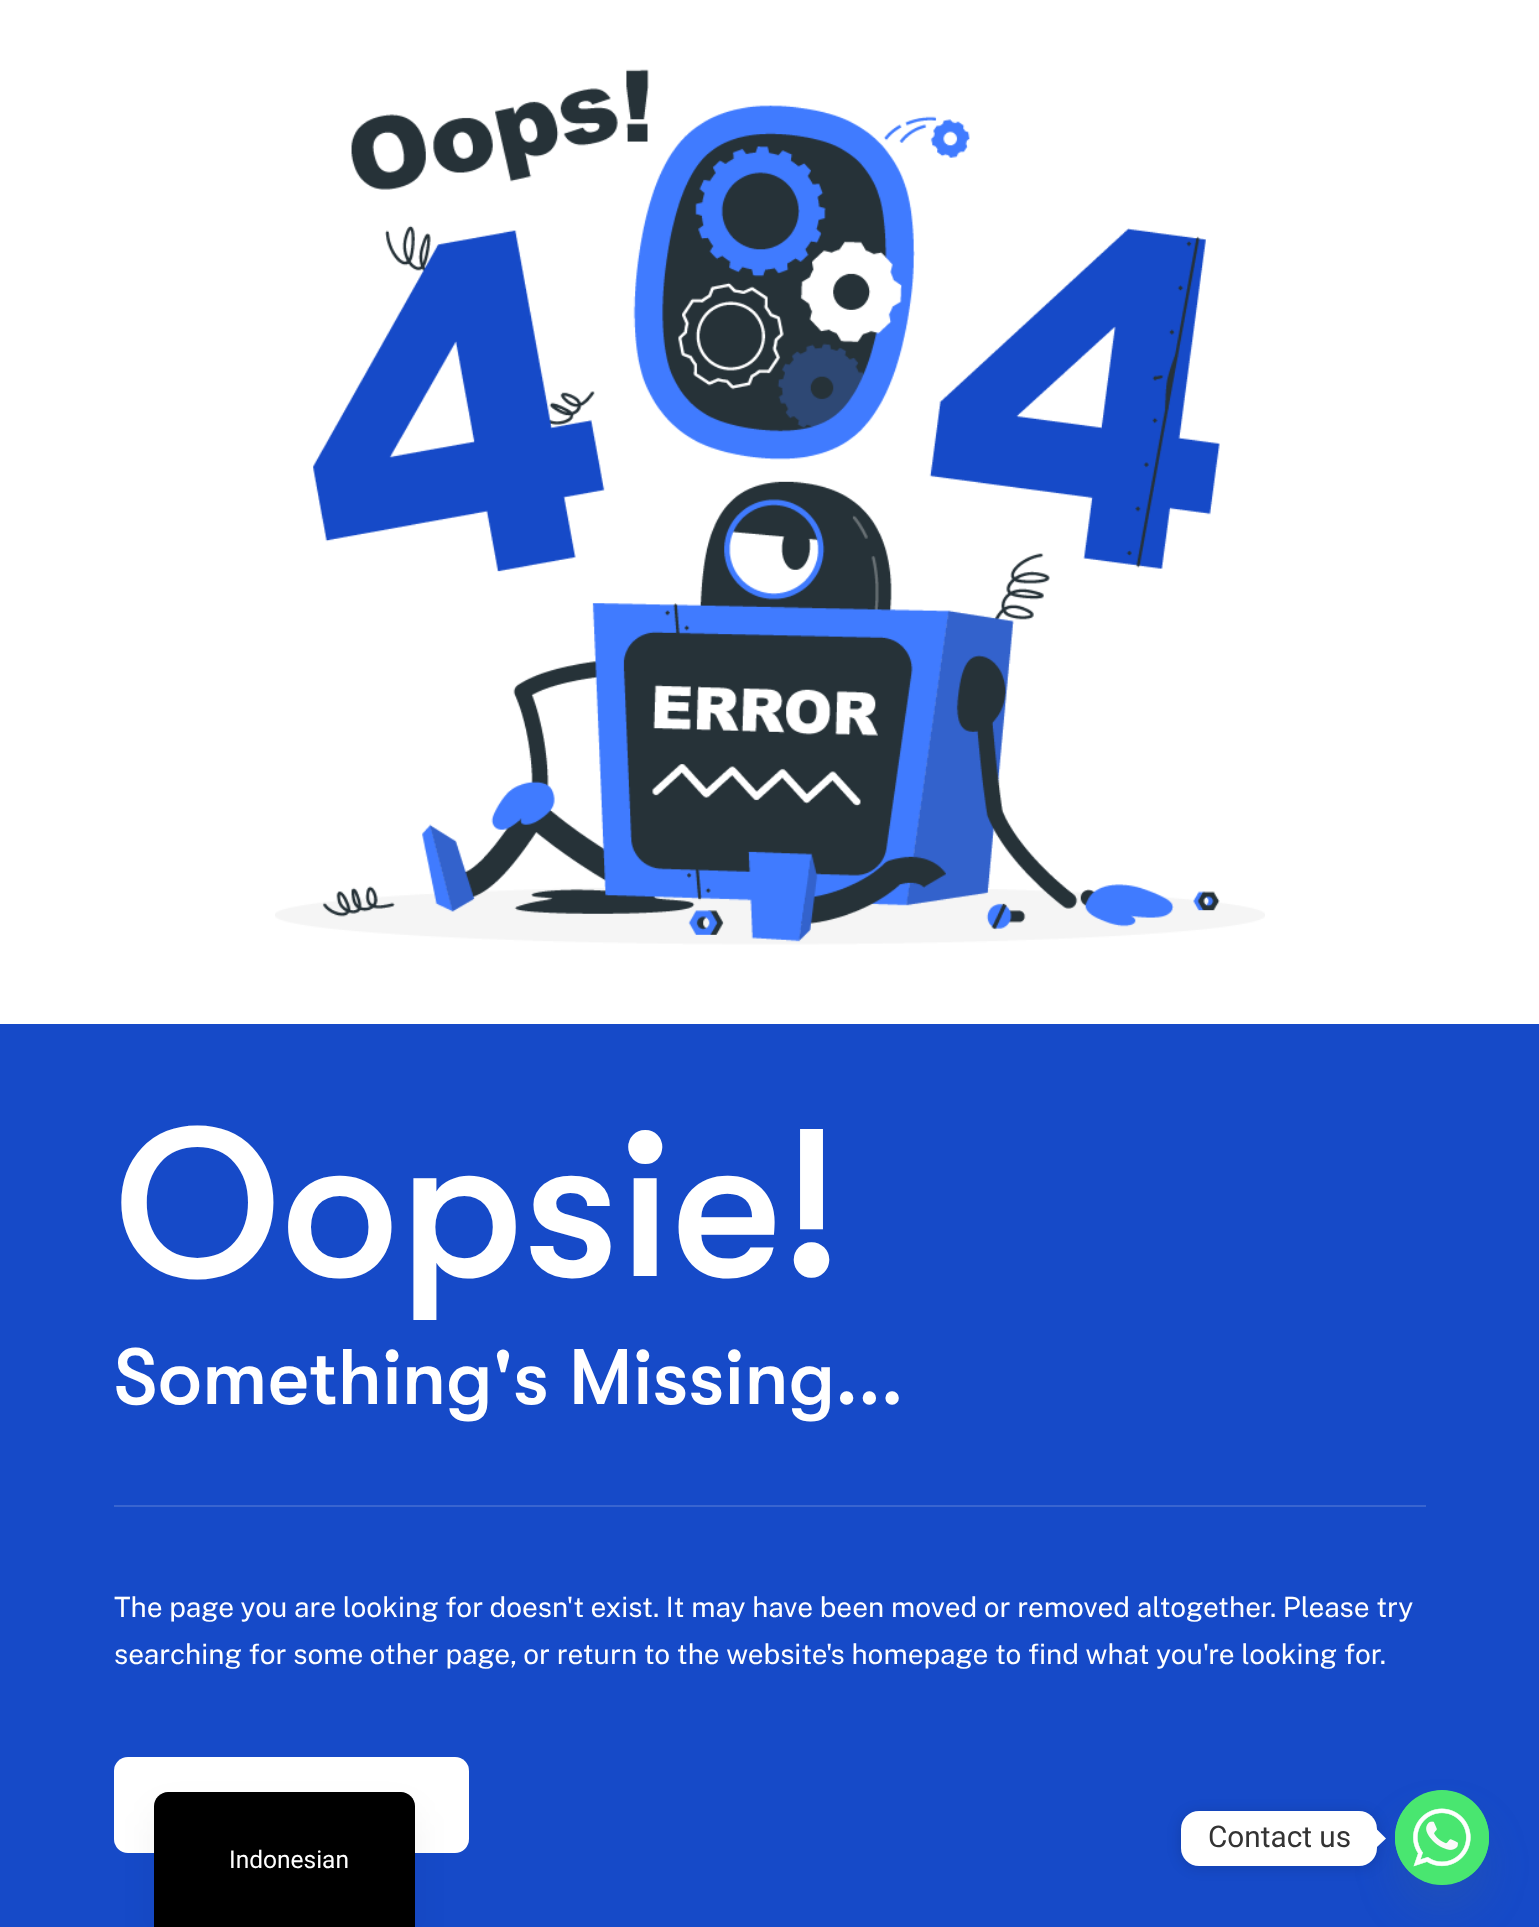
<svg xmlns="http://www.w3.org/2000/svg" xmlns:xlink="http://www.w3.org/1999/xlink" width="1539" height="1927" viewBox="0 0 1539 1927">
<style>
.cls-1{font:500 210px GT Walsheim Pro;fill:#ffffff}
.cls-2{font:500 78.75px GT Walsheim Pro;fill:#ffffff}
.cls-3{font:28px Public Sans;fill:#ffffff}
.cls-4{font:29.75px Roboto;fill:#333333}
.cls-5{font:24.5px Roboto;fill:#ffffff}
</style>
<rect width="100%" height="100%" fill="#ffffff"/>
<image xlink:href="image0.png" x="275" y="69" width="990" height="876"/>
<rect fill="#164ac8" x="0" y="1024" width="1539" height="903"/>
<rect fill="#3965d0" x="114" y="1505" width="1312" height="2"/>
<rect fill="#ffffff" x="114" y="1757" width="355" height="96" rx="14"/>
<rect fill="#49687e" fill-opacity="0.16" filter="blur(21px)" x="1395" y="1818" width="94" height="95" rx="47"/>
<rect fill="#49e670" x="1395" y="1790" width="94" height="95" rx="47"/>
<image xlink:href="image1.png" x="1395" y="1790" width="94" height="95"/>
<rect fill="#000000" fill-opacity="0.15" filter="blur(7px)" x="1181" y="1813" width="196" height="54" rx="18"/>
<rect fill="#ffffff" x="1181" y="1811" width="196" height="55" rx="18"/>
<path fill="#ffffff" d="M1377 1847V1829.5L1386 1838.5Z"/>
<rect fill="#000000" fill-opacity="0.05" filter="blur(17.5px)" x="154" y="1810" width="261" height="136" rx="14"/>
<path fill="#000000" d="M168 1792H401C408.5 1792 415 1798.5 415 1806V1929H154V1806C154 1798.5 160.5 1792 168 1792Z"/>
<text class="cls-1" x="114" y="1276">Oopsie!</text>
<text class="cls-2" x="114" y="1404">Something's Missing...</text>
<text class="cls-3"><tspan x="114" y="1617">The page you are looking for doesn't exist. It may have been moved or removed altogether. Please try</tspan><tspan x="114" y="1664">searching for some other page, or return to the website's homepage to find what you're looking for.</tspan></text>
<text class="cls-4" x="1208" y="1847">Contact us</text>
<text class="cls-5" x="229" y="1868">Indonesian</text>
</svg>
